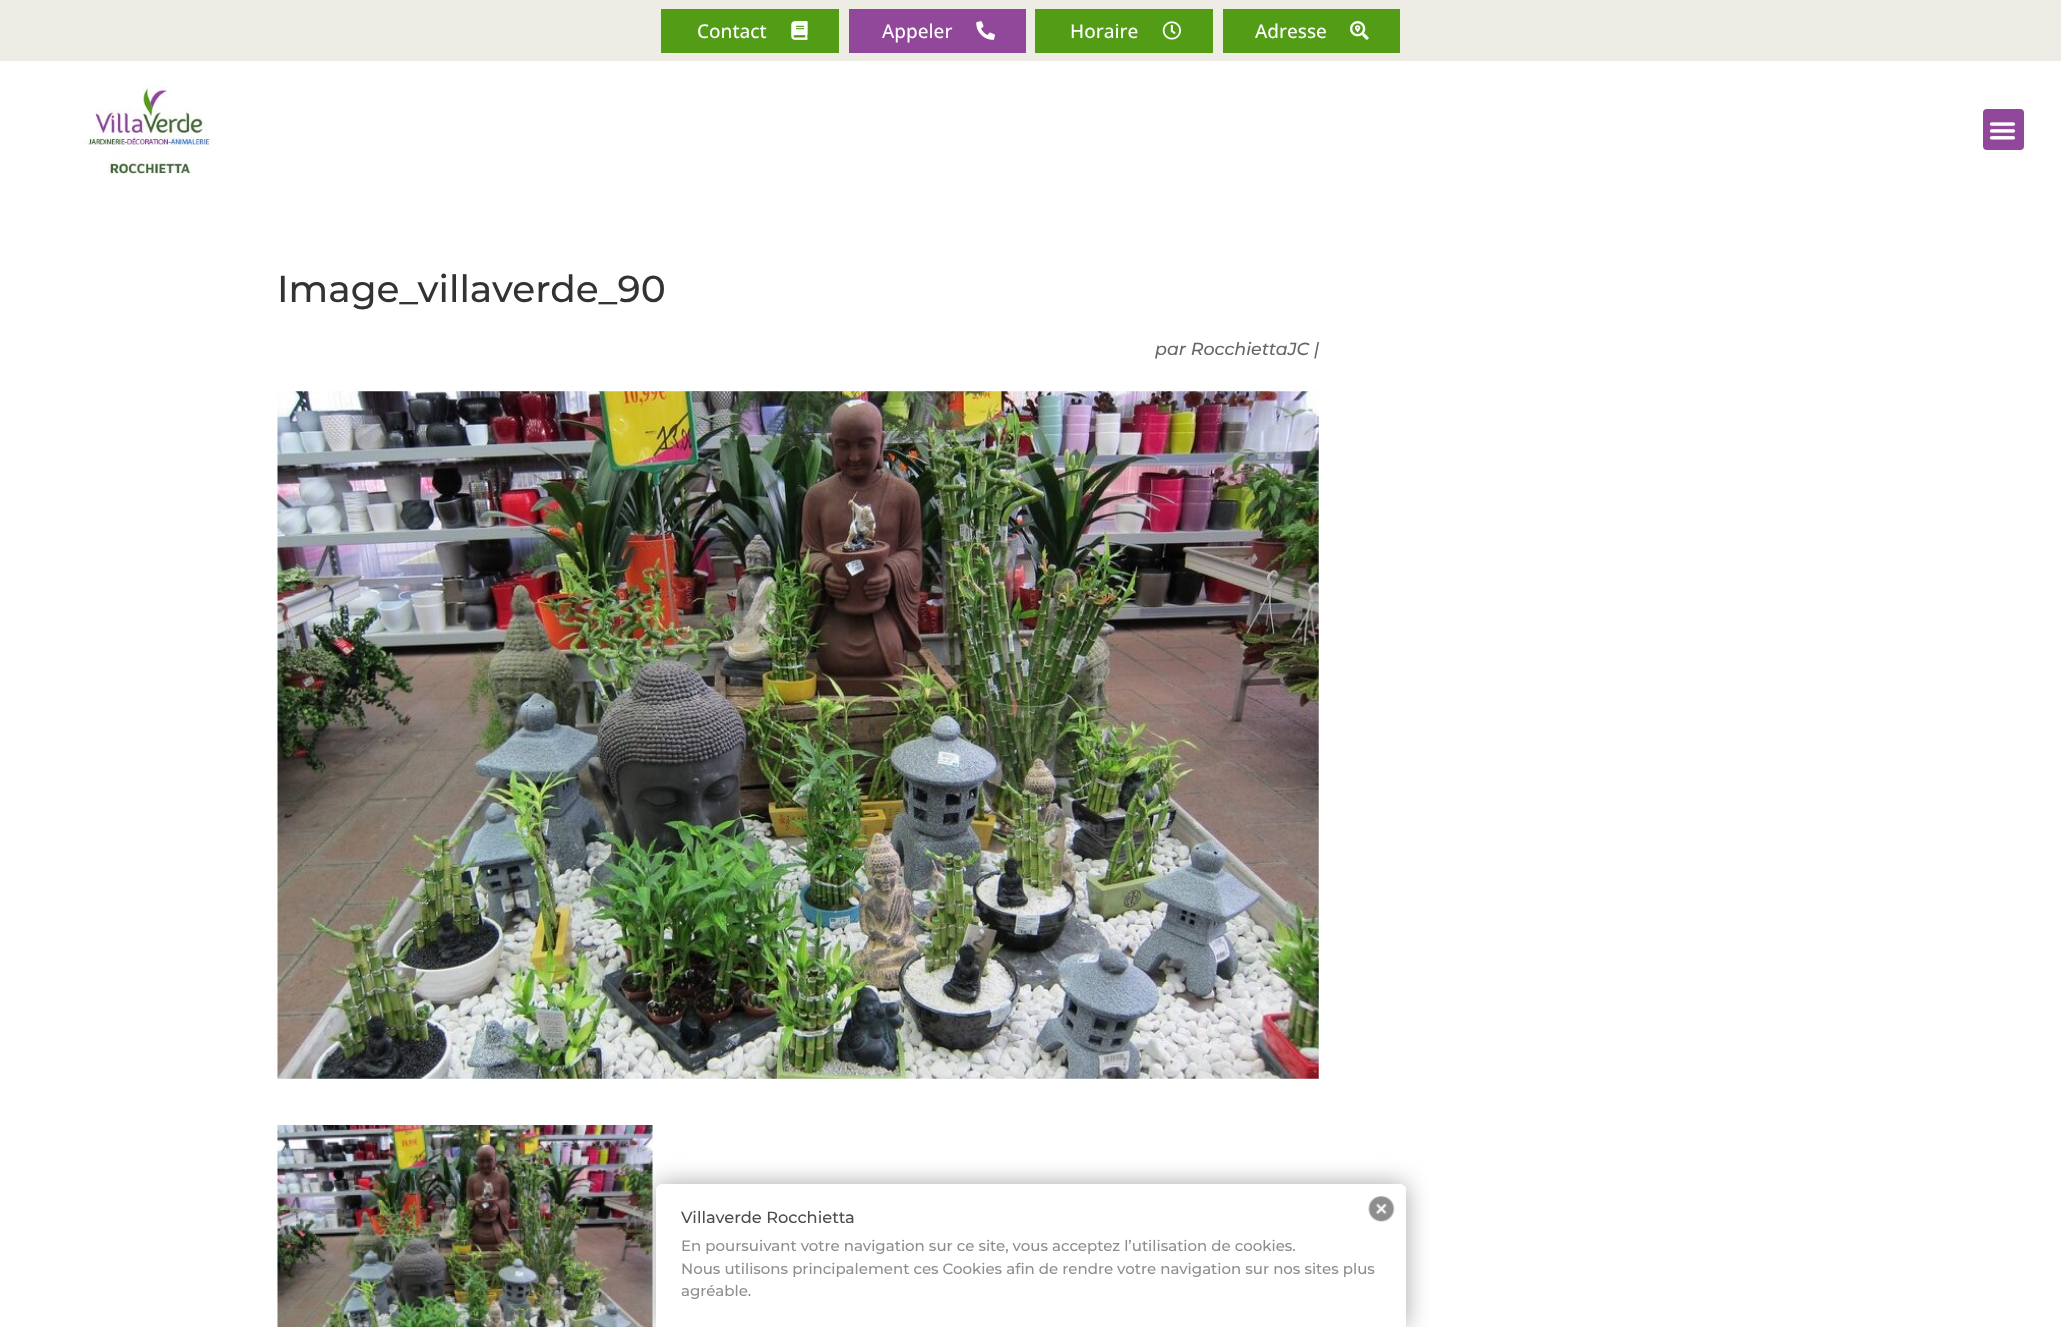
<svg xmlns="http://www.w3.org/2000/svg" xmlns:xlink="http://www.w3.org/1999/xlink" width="2061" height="1327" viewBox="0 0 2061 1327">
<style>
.cls-1{font:500 19px Open Sans;fill:#ffffff}
.cls-2{font:500 37.5px Montserrat;fill:#333333}
.cls-3{font:italic 500 17.5px Montserrat;fill:#666666}
.cls-4{font:500 16.25px Montserrat;fill:#4d4d4d}
.cls-5{font:500 15px Montserrat;fill:#8e8e8e}
</style>
<rect width="100%" height="100%" fill="#ffffff"/>
<rect fill="#edede6" x="0" y="0" width="2061" height="61"/>
<rect fill="#539d16" x="661" y="9" width="178" height="44"/>
<image xlink:href="image0.png" x="791" y="21" width="17" height="19"/>
<rect fill="#91479a" x="849" y="9" width="177" height="44"/>
<image xlink:href="image1.png" x="976" y="21" width="19" height="19"/>
<rect fill="#539d16" x="1035" y="9" width="178" height="44"/>
<image xlink:href="image2.png" x="1162" y="21" width="19" height="19"/>
<rect fill="#539d16" x="1223" y="9" width="177" height="44"/>
<image xlink:href="image3.png" x="1350" y="21" width="19" height="19"/>
<image xlink:href="image4.png" x="85" y="85" width="128" height="94"/>
<rect fill="#91479a" x="1983" y="109" width="41" height="41" rx="4"/>
<image xlink:href="image5.png" x="1989" y="122" width="27" height="18"/>
<image xlink:href="image6.png" x="277" y="391" width="1042" height="688"/>
<image xlink:href="image7.png" x="277" y="1125" width="376" height="202"/>
<rect fill="#a1a1a1" fill-opacity="0.95" filter="blur(12.5px)" x="656" y="1184" width="750" height="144" rx="6"/>
<path fill="#ffffff" d="M662 1184H1400C1403.5 1184 1406 1186.5 1406 1190V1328H656V1190C656 1186.5 658.5 1184 662 1184Z"/>
<image xlink:href="image8.png" x="1368" y="1196" width="27" height="26"/>
<text class="cls-1" x="697" y="38">Contact</text>
<text class="cls-1" x="882" y="38">Appeler</text>
<text class="cls-1" x="1070" y="38">Horaire</text>
<text class="cls-1" x="1255" y="38">Adresse</text>
<text class="cls-2" x="277" y="302">Image_villaverde_90</text>
<text class="cls-3" x="1155" y="355">par RocchiettaJC |</text>
<text class="cls-4" x="681" y="1223">Villaverde Rocchietta</text>
<text class="cls-5"><tspan x="681" y="1251">En poursuivant votre navigation sur ce site, vous acceptez l’utilisation de cookies.</tspan><tspan x="681" y="1274">Nous utilisons principalement ces Cookies afin de rendre votre navigation sur nos sites plus</tspan><tspan x="681" y="1296">agréable.</tspan></text>
</svg>
